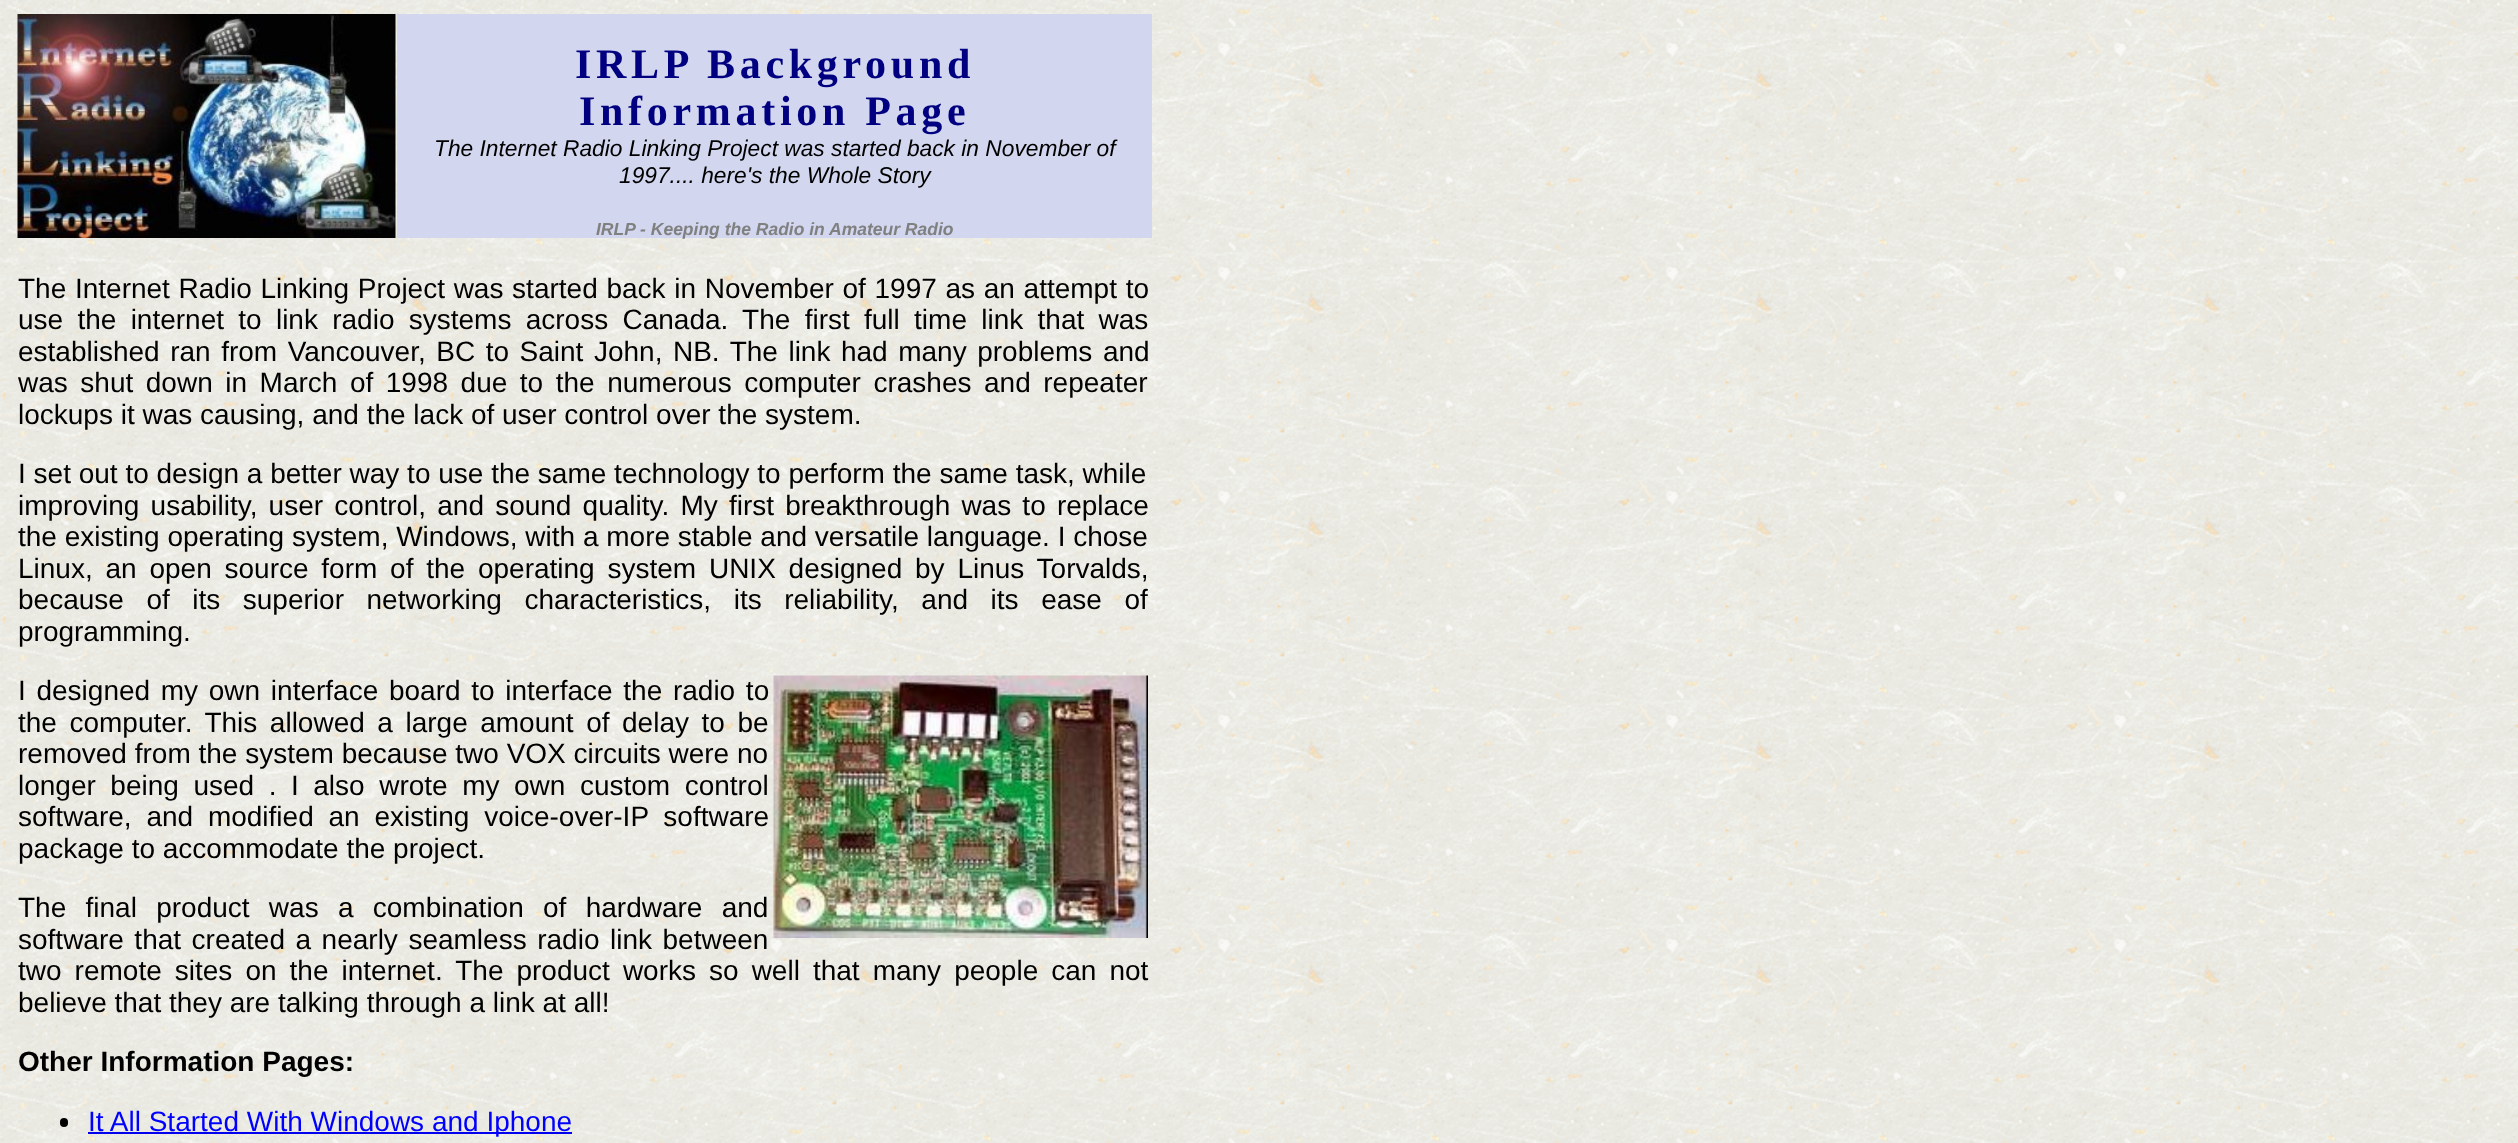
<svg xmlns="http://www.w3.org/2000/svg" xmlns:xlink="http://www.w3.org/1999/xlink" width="2518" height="1143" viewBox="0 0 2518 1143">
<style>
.cls-1{font:bold 42px Liberation Serif;letter-spacing:4.7px;fill:#000080}
.cls-2{font:italic 22.75px Liberation Sans;fill:#000000}
.cls-3{font:italic bold 17.5px Liberation Sans;fill:#808080}
.cls-4{font:28px Liberation Sans;fill:#000000}
.cls-5{font:bold 28px Liberation Sans;fill:#000000}
.cls-6{font:28px Liberation Sans;fill:#0000ff}
</style>
<rect width="100%" height="100%" fill="#ffffff"/>
<image xlink:href="image0.png" x="0" y="0" width="2518" height="1143"/>
<image xlink:href="image1.png" x="17" y="14" width="379" height="224"/>
<rect fill="#d2d6ee" x="397" y="14" width="755" height="224"/>
<image xlink:href="image2.png" x="773" y="675" width="375" height="263"/>
<rect fill="#000000" x="60" y="1118" width="8" height="9" rx="4"/>
<rect fill="#0000ee" x="88" y="1132" width="484" height="2"/>
<text class="cls-1" x="575" y="78">IRLP Background</text>
<text class="cls-1" x="579" y="125">Information Page</text>
<text class="cls-2" x="434" y="156">The Internet Radio Linking Project was started back in November of</text>
<text class="cls-2" x="619" y="183">1997.... here's the Whole Story</text>
<text class="cls-3" x="596" y="235">IRLP - Keeping the Radio in Amateur Radio</text>
<text class="cls-4"><tspan x="18" y="298" word-spacing="0.9">The Internet Radio Linking Project was started back in November of 1997 as an attempt to</tspan><tspan x="18" y="329" word-spacing="6.5">use the internet to link radio systems across Canada. The first full time link that was</tspan><tspan x="18" y="361" word-spacing="2.75">established ran from Vancouver, BC to Saint John, NB. The link had many problems and</tspan><tspan x="18" y="392" word-spacing="4.75">was shut down in March of 1998 due to the numerous computer crashes and repeater</tspan><tspan x="18" y="424">lockups it was causing, and the lack of user control over the system.</tspan></text>
<text class="cls-4"><tspan x="18" y="483">I set out to design a better way to use the same technology to perform the same task, while</tspan><tspan x="18" y="515" word-spacing="3.4">improving usability, user control, and sound quality. My first breakthrough was to replace</tspan><tspan x="18" y="546">the existing operating system, Windows, with a more stable and versatile language. I chose</tspan><tspan x="18" y="578" word-spacing="5">Linux, an open source form of the operating system UNIX designed by Linus Torvalds,</tspan><tspan x="18" y="609" word-spacing="14.75">because of its superior networking characteristics, its reliability, and its ease of</tspan><tspan x="18" y="641">programming.</tspan></text>
<text class="cls-4"><tspan x="18" y="700" word-spacing="2.9">I designed my own interface board to interface the radio to</tspan><tspan x="18" y="732" word-spacing="4.75">the computer. This allowed a large amount of delay to be</tspan><tspan x="18" y="763">removed from the system because two VOX circuits were no</tspan><tspan x="18" y="795" word-spacing="6.75">longer being used . I also wrote my own custom control</tspan><tspan x="18" y="826" word-spacing="7">software, and modified an existing voice-over-IP software</tspan><tspan x="18" y="858">package to accommodate the project.</tspan></text>
<text class="cls-4"><tspan x="18" y="917" word-spacing="11.5">The final product was a combination of hardware and</tspan><tspan x="18" y="949" word-spacing="2.75">software that created a nearly seamless radio link between</tspan><tspan x="18" y="980" word-spacing="5.25">two remote sites on the internet. The product works so well that many people can not</tspan><tspan x="18" y="1012">believe that they are talking through a link at all!</tspan></text>
<text class="cls-5" x="18" y="1071">Other Information Pages:</text>
<text class="cls-6" x="88" y="1131">It All Started With Windows and Iphone</text>
</svg>
